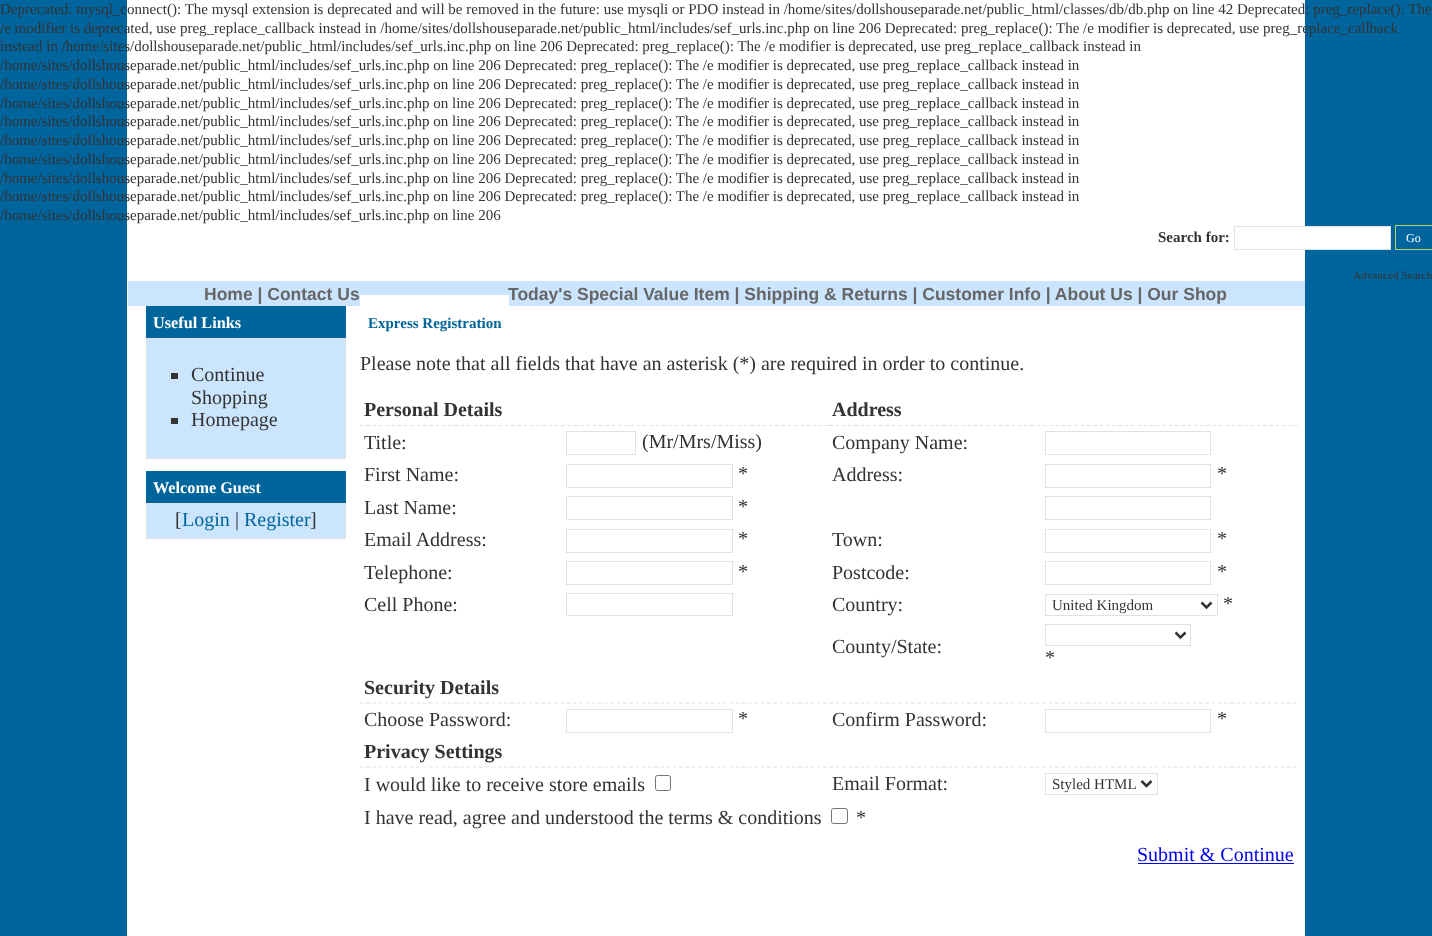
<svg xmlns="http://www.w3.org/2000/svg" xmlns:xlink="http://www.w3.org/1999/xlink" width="1432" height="936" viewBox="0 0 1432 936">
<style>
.cls-1{font:15px Liberation Serif;fill:#333333}
.cls-2{font:bold 15px Liberation Serif;fill:#333333}
.cls-3{font:12px Liberation Serif;fill:#ffffff}
.cls-4{font:11.25px Liberation Serif;fill:#333333}
.cls-5{font:bold 17.5px Liberation Sans;fill:#666666}
.cls-6{font:bold 16.25px Liberation Serif;fill:#ffffff}
.cls-7{font:20px Liberation Serif;fill:#333333}
.cls-8{font:20px Liberation Serif;fill:#00659b}
.cls-9{font:bold 15px Liberation Serif;fill:#00659b}
.cls-10{font:bold 20px Liberation Serif;fill:#333333}
.cls-11{font:20px Liberation Serif;fill:#0000ee}
</style>
<rect width="100%" height="100%" fill="#00649d"/>
<rect fill="#ffffff" x="127" y="0" width="1178" height="936"/>
<rect fill="#ffffff" x="1305" y="227" width="85" height="22"/>
<rect fill="none" stroke="#e1e1e1" x="1234.5" y="226.5" width="156" height="23"/>
<rect fill="none" stroke="#b1d16c" x="1395.5" y="225.5" width="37" height="24"/>
<rect fill="#cce5ff" x="128" y="281" width="1177" height="25"/>
<rect fill="#00659b" x="146" y="306" width="200" height="32"/>
<rect fill="#cce5ff" stroke="#e1e1e1" x="146.5" y="338.5" width="199" height="120"/>
<rect fill="#333333" x="171" y="373" width="7" height="6"/>
<rect fill="#333333" x="171" y="418" width="7" height="6"/>
<rect fill="#00659b" x="146" y="471" width="200" height="32"/>
<rect fill="#cce5ff" stroke="#e1e1e1" x="146.5" y="503.5" width="199" height="35"/>
<path fill="none" stroke="#e1e1e1" stroke-width="1.2" stroke-dasharray="3.75 2.54" d="M360 425.5H829"/>
<path fill="none" stroke="#e1e1e1" stroke-width="1.2" stroke-dasharray="3.75 2.54" d="M829 425.5H1297.5"/>
<rect fill="none" stroke="#e1e1e1" x="566.5" y="431.5" width="69" height="23"/>
<rect fill="none" stroke="#e1e1e1" x="1045.5" y="431.5" width="165" height="23"/>
<rect fill="none" stroke="#e1e1e1" x="566.5" y="464.5" width="166" height="23"/>
<rect fill="none" stroke="#e1e1e1" x="1045.5" y="464.5" width="165" height="23"/>
<rect fill="none" stroke="#e1e1e1" x="566.5" y="496.5" width="166" height="23"/>
<rect fill="none" stroke="#e1e1e1" x="1045.5" y="496.5" width="165" height="23"/>
<rect fill="none" stroke="#e1e1e1" x="566.5" y="529.5" width="166" height="23"/>
<rect fill="none" stroke="#e1e1e1" x="1045.5" y="529.5" width="165" height="23"/>
<rect fill="none" stroke="#e1e1e1" x="566.5" y="561.5" width="166" height="23"/>
<rect fill="none" stroke="#e1e1e1" x="1045.5" y="561.5" width="165" height="23"/>
<rect fill="none" stroke="#e1e1e1" x="566.5" y="593.5" width="166" height="22"/>
<rect fill="none" stroke="#e1e1e1" x="1045.5" y="594.5" width="172" height="21"/>
<path fill="none" stroke="#333333" stroke-width="2.5" d="M1201.5 602.5L1206.5 607.5L1211.5 602.5"/>
<rect fill="none" stroke="#e1e1e1" x="1045.5" y="624.5" width="145" height="21"/>
<path fill="none" stroke="#333333" stroke-width="2.5" d="M1175.5 632.5L1180.5 637.5L1185.5 632.5"/>
<path fill="none" stroke="#e1e1e1" stroke-width="1.2" stroke-dasharray="3.75 2.51" d="M360 703H1297.5"/>
<rect fill="none" stroke="#e1e1e1" x="566.5" y="709.5" width="166" height="23"/>
<rect fill="none" stroke="#e1e1e1" x="1045.5" y="709.5" width="165" height="23"/>
<path fill="none" stroke="#e1e1e1" stroke-width="1.2" stroke-dasharray="3.75 2.51" d="M360 767H1297.5"/>
<rect fill="none" stroke="#767676" x="655.5" y="775.5" width="15" height="15" rx="2"/>
<rect fill="none" stroke="#e1e1e1" x="1045.5" y="773.5" width="112" height="21"/>
<path fill="none" stroke="#333333" stroke-width="2.5" d="M1141.5 781L1146.5 786L1151.5 781"/>
<rect fill="none" stroke="#767676" x="831.5" y="808.5" width="16" height="15" rx="2"/>
<rect fill="#0000ee" x="1138" y="863" width="156" height="1"/>
<text class="cls-1"><tspan x="0" y="14">Deprecated: mysql_connect(): The mysql extension is deprecated and will be removed in the future: use mysqli or PDO instead in /home/sites/dollshouseparade.net/public_html/classes/db/db.php on line 42 Deprecated: preg_replace(): The</tspan><tspan x="0" y="33">/e modifier is deprecated, use preg_replace_callback instead in /home/sites/dollshouseparade.net/public_html/includes/sef_urls.inc.php on line 206 Deprecated: preg_replace(): The /e modifier is deprecated, use preg_replace_callback</tspan><tspan x="0" y="51">instead in /home/sites/dollshouseparade.net/public_html/includes/sef_urls.inc.php on line 206 Deprecated: preg_replace(): The /e modifier is deprecated, use preg_replace_callback instead in</tspan><tspan x="0" y="70">/home/sites/dollshouseparade.net/public_html/includes/sef_urls.inc.php on line 206 Deprecated: preg_replace(): The /e modifier is deprecated, use preg_replace_callback instead in</tspan><tspan x="0" y="89">/home/sites/dollshouseparade.net/public_html/includes/sef_urls.inc.php on line 206 Deprecated: preg_replace(): The /e modifier is deprecated, use preg_replace_callback instead in</tspan><tspan x="0" y="108">/home/sites/dollshouseparade.net/public_html/includes/sef_urls.inc.php on line 206 Deprecated: preg_replace(): The /e modifier is deprecated, use preg_replace_callback instead in</tspan><tspan x="0" y="126">/home/sites/dollshouseparade.net/public_html/includes/sef_urls.inc.php on line 206 Deprecated: preg_replace(): The /e modifier is deprecated, use preg_replace_callback instead in</tspan><tspan x="0" y="145">/home/sites/dollshouseparade.net/public_html/includes/sef_urls.inc.php on line 206 Deprecated: preg_replace(): The /e modifier is deprecated, use preg_replace_callback instead in</tspan><tspan x="0" y="164">/home/sites/dollshouseparade.net/public_html/includes/sef_urls.inc.php on line 206 Deprecated: preg_replace(): The /e modifier is deprecated, use preg_replace_callback instead in</tspan><tspan x="0" y="183">/home/sites/dollshouseparade.net/public_html/includes/sef_urls.inc.php on line 206 Deprecated: preg_replace(): The /e modifier is deprecated, use preg_replace_callback instead in</tspan><tspan x="0" y="201">/home/sites/dollshouseparade.net/public_html/includes/sef_urls.inc.php on line 206 Deprecated: preg_replace(): The /e modifier is deprecated, use preg_replace_callback instead in</tspan><tspan x="0" y="220">/home/sites/dollshouseparade.net/public_html/includes/sef_urls.inc.php on line 206</tspan></text>
<text class="cls-2" x="1158" y="242">Search for:</text>
<text class="cls-3" x="1406" y="242">Go</text>
<text class="cls-4" x="1353" y="279">Advanced Search</text>
<text class="cls-5" x="204" y="300">Home | Contact Us</text>
<text class="cls-5" x="508" y="300">Today's Special Value Item | Shipping &amp; Returns | Customer Info | About Us | Our Shop</text>
<text class="cls-6" x="153" y="328">Useful Links</text>
<text class="cls-7"><tspan x="191" y="381">Continue</tspan><tspan x="191" y="404">Shopping</tspan><tspan x="191" y="426">Homepage</tspan></text>
<text class="cls-6" x="153" y="493">Welcome Guest</text>
<text class="cls-7" x="175" y="526">[</text>
<text class="cls-8" x="182" y="526">Login</text>
<text class="cls-7" x="235" y="526">|</text>
<text class="cls-8" x="244" y="526">Register</text>
<text class="cls-7" x="310" y="526">]</text>
<text class="cls-9" x="368" y="328">Express Registration</text>
<rect fill="#ffffff" x="360" y="295" width="149" height="11"/>
<text class="cls-7" x="360" y="370">Please note that all fields that have an asterisk (*) are required in order to continue.</text>
<text class="cls-10" x="364" y="416">Personal Details</text>
<text class="cls-10" x="832" y="416">Address</text>
<text class="cls-7" x="364" y="449">Title:</text>
<text class="cls-7" x="642" y="448">(Mr/Mrs/Miss)</text>
<text class="cls-7" x="832" y="449">Company Name:</text>
<text class="cls-7" x="364" y="481">First Name:</text>
<text class="cls-7" x="738" y="480">*</text>
<text class="cls-7" x="832" y="481">Address:</text>
<text class="cls-7" x="1217" y="480">*</text>
<text class="cls-7" x="364" y="514">Last Name:</text>
<text class="cls-7" x="738" y="513">*</text>
<text class="cls-7" x="364" y="546">Email Address:</text>
<text class="cls-7" x="738" y="545">*</text>
<text class="cls-7" x="832" y="546">Town:</text>
<text class="cls-7" x="1217" y="545">*</text>
<text class="cls-7" x="364" y="579">Telephone:</text>
<text class="cls-7" x="738" y="578">*</text>
<text class="cls-7" x="832" y="579">Postcode:</text>
<text class="cls-7" x="1217" y="578">*</text>
<text class="cls-7" x="364" y="611">Cell Phone:</text>
<text class="cls-7" x="832" y="611">Country:</text>
<text class="cls-1" x="1052" y="610">United Kingdom</text>
<text class="cls-7" x="1223" y="610">*</text>
<text class="cls-7" x="832" y="653">County/State:</text>
<text class="cls-7" x="1045" y="664">*</text>
<text class="cls-10" x="364" y="694">Security Details</text>
<text class="cls-7" x="364" y="726">Choose Password:</text>
<text class="cls-7" x="738" y="725">*</text>
<text class="cls-7" x="832" y="726">Confirm Password:</text>
<text class="cls-7" x="1217" y="725">*</text>
<text class="cls-10" x="364" y="758">Privacy Settings</text>
<text class="cls-7" x="364" y="791">I would like to receive store emails</text>
<text class="cls-7" x="832" y="790">Email Format:</text>
<text class="cls-1" x="1052" y="789">Styled HTML</text>
<text class="cls-7" x="364" y="824">I have read, agree and understood the terms &amp; conditions</text>
<text class="cls-7" x="856" y="824">*</text>
<text class="cls-11" x="1137" y="861">Submit &amp; Continue</text>
</svg>
